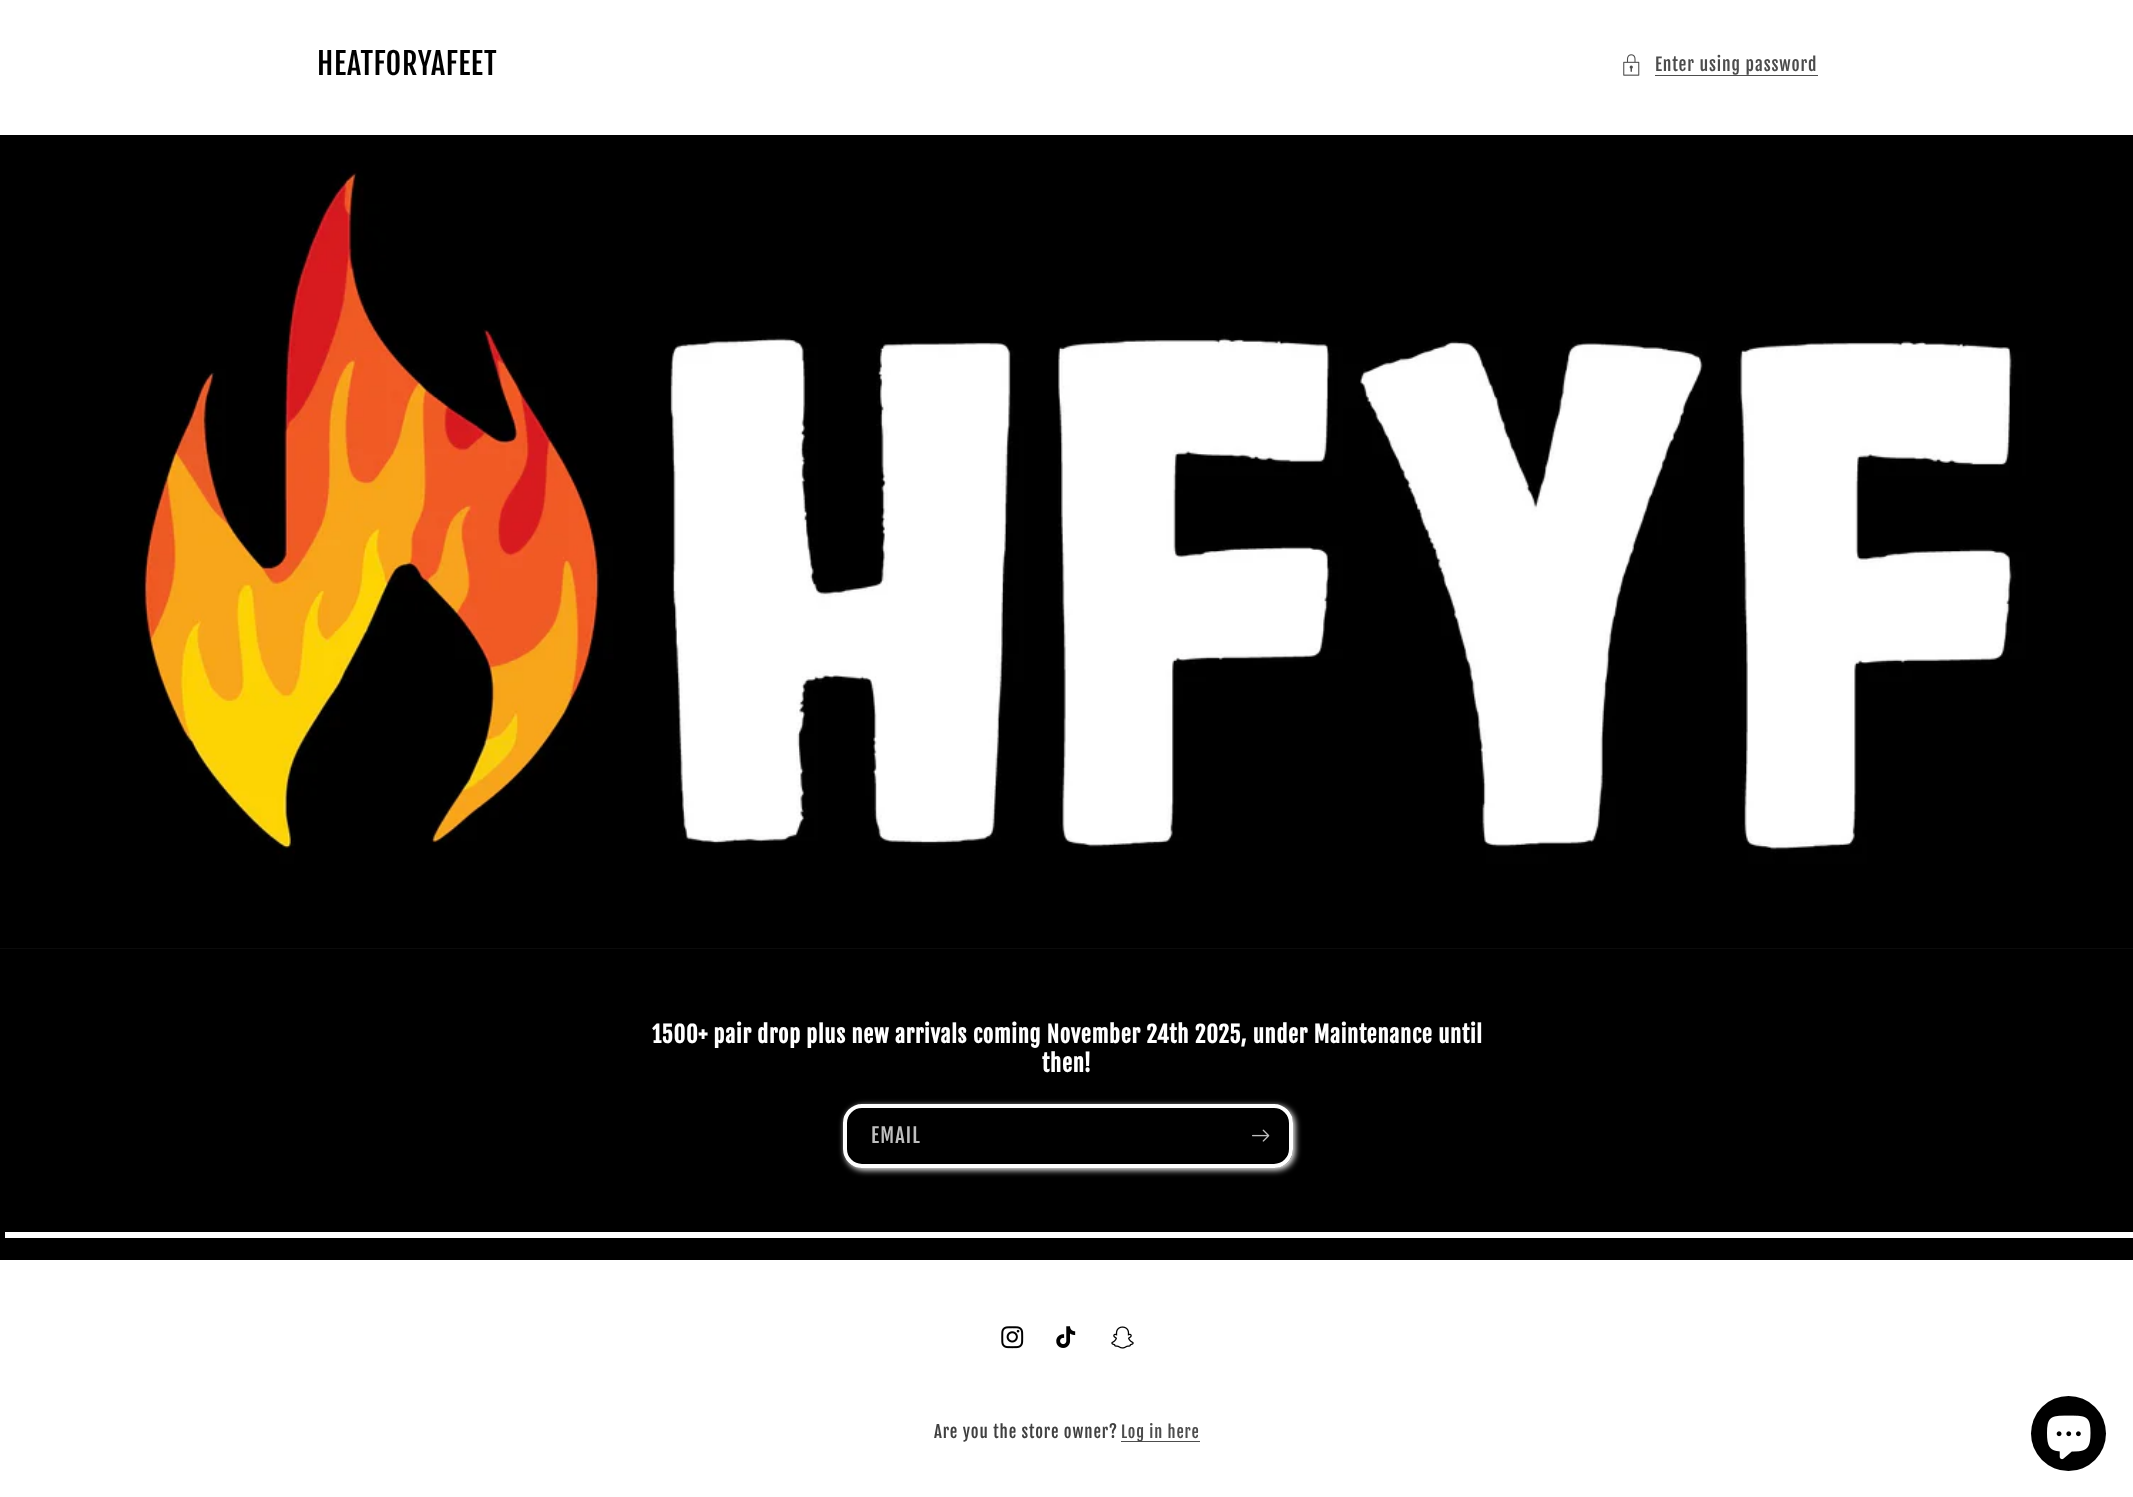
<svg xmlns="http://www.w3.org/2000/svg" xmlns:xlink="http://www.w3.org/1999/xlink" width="2133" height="1497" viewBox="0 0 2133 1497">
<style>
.cls-1{font:30px Fjalla One;letter-spacing:0.75px;fill:#000000}
.cls-2{font:17.5px Fjalla One;letter-spacing:0.9px;fill:#4c4c4c}
.cls-3{font:bold 22.5px Fjalla One;letter-spacing:0.75px;fill:#ffffff}
.cls-4{font:20px Fjalla One;letter-spacing:1.25px;fill:#bfbfbf}
.cls-5{font:16.75px Fjalla One;letter-spacing:0.9px;fill:#404040}
.cls-6{font:16.25px Fjalla One;letter-spacing:0.9px;fill:#4c4c4c}
</style>
<defs>
<clipPath id="clip1"><path d="M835 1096H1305V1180H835ZM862 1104H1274C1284.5 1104 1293 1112.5 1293 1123V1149C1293 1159.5 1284.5 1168 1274 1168H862C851.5 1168 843 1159.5 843 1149V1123C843 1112.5 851.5 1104 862 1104Z" clip-rule="evenodd"/></clipPath>
</defs>
<rect width="100%" height="100%" fill="#000000"/>
<rect fill="#ffffff" x="0" y="0" width="2133" height="135"/>
<image xlink:href="image0.png" x="1623" y="54" width="17" height="22"/>
<rect fill="#4d4d4d" x="1655" y="75" width="163" height="1"/>
<rect fill="#1a1a1a" x="0" y="948" width="2133" height="1"/>
<image xlink:href="image1.png" x="0" y="135" width="2133" height="814"/>
<g clip-path="url(#clip1)">
<rect fill="#ffffff" filter="blur(3px)" x="845" y="1106" width="450" height="64" rx="19"/>
</g>
<rect fill="none" stroke="#ffffff" stroke-width="4" x="845" y="1106" width="446" height="60" rx="17"/>
<image xlink:href="image2.png" x="1252" y="1129" width="18" height="13"/>
<path fill="#ffffff" d="M5 1232V1238H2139V954H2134V1232Z"/>
<rect fill="#ffffff" x="0" y="1260" width="2133" height="237"/>
<image xlink:href="image3.png" x="1001" y="1326" width="23" height="23"/>
<image xlink:href="image4.png" x="1056" y="1326" width="20" height="22"/>
<image xlink:href="image5.png" x="1111" y="1326" width="23" height="23"/>
<rect fill="#4d4d4d" x="1121" y="1441" width="79" height="1"/>
<circle fill="#000000" cx="2068.5" cy="1433.5" r="37.5"/>
<image xlink:href="image6.png" x="2047" y="1415" width="44" height="45"/>
<text class="cls-1" x="317" y="75">HEATFORYAFEET</text>
<text class="cls-2" x="1655" y="71">Enter using password</text>
<text class="cls-3" x="652" y="1043">1500+ pair drop plus new arrivals coming November 24th 2025, under Maintenance until</text>
<text class="cls-3" x="1042" y="1072">then!</text>
<text class="cls-4" x="871" y="1143">EMAIL</text>
<text class="cls-5" x="934" y="1438">Are you the store owner?</text>
<text class="cls-6" x="1121" y="1438">Log in here</text>
</svg>
